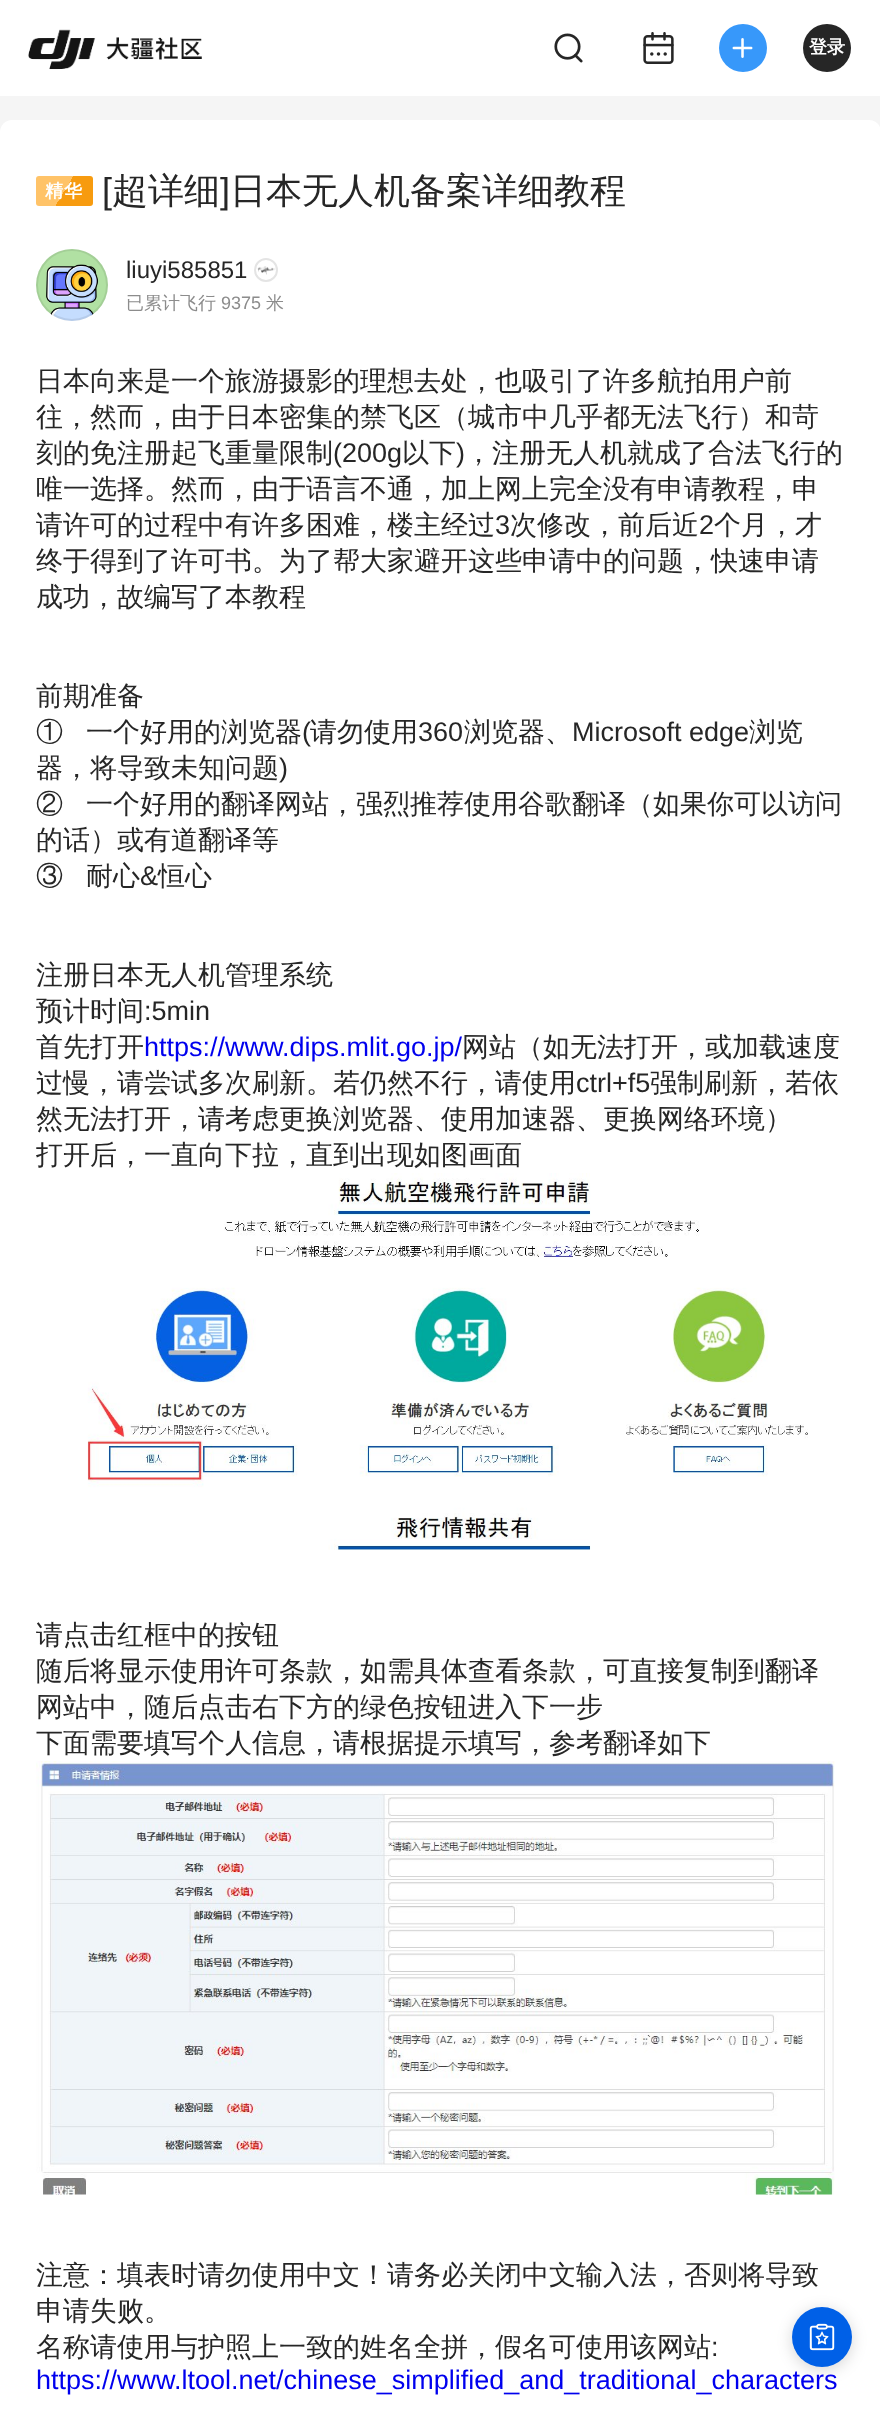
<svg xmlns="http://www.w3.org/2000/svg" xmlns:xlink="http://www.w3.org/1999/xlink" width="880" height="2411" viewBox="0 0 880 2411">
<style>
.cls-1{font:bold 18px WenQuanYi Zen Hei;fill:#ffffff}
.cls-2{font:bold 18px WenQuanYi Zen Hei;letter-spacing:1px;fill:#ffffff}
.cls-3{font:36px Liberation Sans;fill:#262626}
.cls-4{font:500 36px WenQuanYi Zen Hei;fill:#262626}
.cls-5{font:24px Liberation Sans;fill:#262626}
.cls-6{font:500 18px WenQuanYi Zen Hei;fill:#8c8c8c}
.cls-7{font:18px Liberation Sans;fill:#8c8c8c}
.cls-8{font:500 27px WenQuanYi Zen Hei;fill:#262626}
.cls-9{font:27px Liberation Sans;fill:#262626}
.cls-10{font:27px Liberation Sans;fill:#0000ee}
</style>
<defs>
<linearGradient id="g1" gradientUnits="userSpaceOnUse" x1="37" y1="174" x2="92" y2="207"><stop offset="0.5" stop-color="#ffc368"/><stop offset="0.5" stop-color="#f79b0f"/></linearGradient>
</defs>
<rect width="100%" height="100%" fill="#f5f5f5"/>
<rect fill="#ffffff" x="0" y="0" width="880" height="96"/>
<image xlink:href="image0.png" x="28" y="29" width="174" height="41"/>
<image xlink:href="image1.png" x="554" y="33" width="29" height="30"/>
<image xlink:href="image2.png" x="643" y="32" width="31" height="32"/>
<circle fill="#3798fa" cx="743" cy="48" r="24"/>
<image xlink:href="image3.png" x="732" y="38" width="21" height="20"/>
<circle fill="#262626" cx="827" cy="48" r="24"/>
<path fill="#ffffff" d="M12 120H869C875.5 120 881 125.5 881 132V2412H0V132C0 125.5 5.5 120 12 120Z"/>
<rect fill="url(#g1)" x="36" y="176" width="57" height="30" rx="3"/>
<image xlink:href="image4.png" x="36" y="249" width="72" height="72"/>
<circle fill="none" stroke="#000000" stroke-opacity="0.08" stroke-width="2" cx="72" cy="285" r="35"/>
<circle fill="none" stroke="#e4e4e4" stroke-width="2" cx="266" cy="270" r="11"/>
<image xlink:href="image5.png" x="257" y="266" width="19" height="9"/>
<image xlink:href="image6.png" x="87" y="1173" width="721" height="377"/>
<image xlink:href="image7.png" x="36" y="1761" width="799" height="434"/>
<rect fill="#000000" fill-opacity="0.16" filter="blur(7.5px)" x="792" y="2310" width="60" height="60" rx="30"/>
<circle fill="#0060e7" cx="822" cy="2337" r="30"/>
<image xlink:href="image8.png" x="809" y="2323" width="26" height="28"/>
<text class="cls-1" x="809" y="53">登录</text>
<text class="cls-2" x="45" y="197">精华</text>
<text class="cls-3" x="102" y="203">[</text>
<text class="cls-4" x="112" y="203">超详细</text>
<text class="cls-3" x="220" y="203">]</text>
<text class="cls-4" x="230" y="203">日本无人机备案详细教程</text>
<text class="cls-5" x="126" y="278">liuyi585851</text>
<text class="cls-6" x="126" y="309">已累计飞行</text>
<text class="cls-7" x="221" y="309">9375</text>
<text class="cls-6" x="266" y="309">米</text>
<text class="cls-8"><tspan x="36" y="390">日本向来是一个旅游摄影的理想去处，也吸引了许多航拍用户前</tspan><tspan x="36" y="426">往，然而，由于日本密集的禁飞区（城市中几乎都无法飞行）和苛</tspan><tspan x="36" y="462">刻的免注册起飞重量限制</tspan></text>
<text class="cls-9" x="333" y="462">(200g</text>
<text class="cls-8" x="402" y="462">以下</text>
<text class="cls-9" x="456" y="462">)</text>
<text class="cls-8" x="465" y="462">，注册无人机就成了合法飞行的</text>
<text class="cls-8"><tspan x="36" y="498">唯一选择。然而，由于语言不通，加上网上完全没有申请教程，申</tspan><tspan x="36" y="534">请许可的过程中有许多困难，楼主经过</tspan></text>
<text class="cls-9" x="495" y="534">3</text>
<text class="cls-8" x="510" y="534">次修改，前后近</text>
<text class="cls-9" x="699" y="534">2</text>
<text class="cls-8" x="714" y="534">个月，才</text>
<text class="cls-8"><tspan x="36" y="570">终于得到了许可书。为了帮大家避开这些申请中的问题，快速申请</tspan><tspan x="36" y="606">成功，故编写了本教程</tspan></text>
<text class="cls-8"><tspan x="36" y="705">前期准备</tspan><tspan x="36" y="741">①</tspan></text>
<text class="cls-8" x="86" y="741">一个好用的浏览器</text>
<text class="cls-9" x="302" y="741">(</text>
<text class="cls-8" x="310" y="741">请勿使用</text>
<text class="cls-9" x="418" y="741">360</text>
<text class="cls-8" x="464" y="741">浏览器、</text>
<text class="cls-9" x="572" y="741">Microsoft edge</text>
<text class="cls-8" x="749" y="741">浏览</text>
<text class="cls-8" x="36" y="777">器，将导致未知问题</text>
<text class="cls-9" x="279" y="777">)</text>
<text class="cls-8" x="36" y="813">②</text>
<text class="cls-8" x="86" y="813">一个好用的翻译网站，强烈推荐使用谷歌翻译（如果你可以访问</text>
<text class="cls-8"><tspan x="36" y="849">的话）或有道翻译等</tspan><tspan x="36" y="885">③</tspan></text>
<text class="cls-8" x="86" y="885">耐心</text>
<text class="cls-9" x="140" y="885">&amp;</text>
<text class="cls-8" x="158" y="885">恒心</text>
<text class="cls-8"><tspan x="36" y="984">注册日本无人机管理系统</tspan><tspan x="36" y="1020">预计时间</tspan></text>
<text class="cls-9" x="144" y="1020">:5min</text>
<text class="cls-8" x="36" y="1056">首先打开</text>
<text class="cls-10" x="144" y="1056">https://www.dips.mlit.go.jp/</text>
<text class="cls-8" x="462" y="1056">网站（如无法打开，或加载速度</text>
<text class="cls-8" x="36" y="1092">过慢，请尝试多次刷新。若仍然不行，请使用</text>
<text class="cls-9" x="576" y="1092">ctrl+f5</text>
<text class="cls-8" x="650" y="1092">强制刷新，若依</text>
<text class="cls-8"><tspan x="36" y="1128">然无法打开，请考虑更换浏览器、使用加速器、更换网络环境）</tspan><tspan x="36" y="1164">打开后，一直向下拉，直到出现如图画面</tspan></text>
<text class="cls-8"><tspan x="36" y="1644">请点击红框中的按钮</tspan><tspan x="36" y="1680">随后将显示使用许可条款，如需具体查看条款，可直接复制到翻译</tspan><tspan x="36" y="1716">网站中，随后点击右下方的绿色按钮进入下一步</tspan><tspan x="36" y="1752">下面需要填写个人信息，请根据提示填写，参考翻译如下</tspan></text>
<text class="cls-8"><tspan x="36" y="2284">注意：填表时请勿使用中文！请务必关闭中文输入法，否则将导致</tspan><tspan x="36" y="2320">申请失败。</tspan><tspan x="36" y="2356">名称请使用与护照上一致的姓名全拼，假名可使用该网站</tspan></text>
<text class="cls-9" x="711" y="2356">:</text>
<text class="cls-10" x="36" y="2389">https://www.ltool.net/chinese_simplified_and_traditional_characters</text>
</svg>
